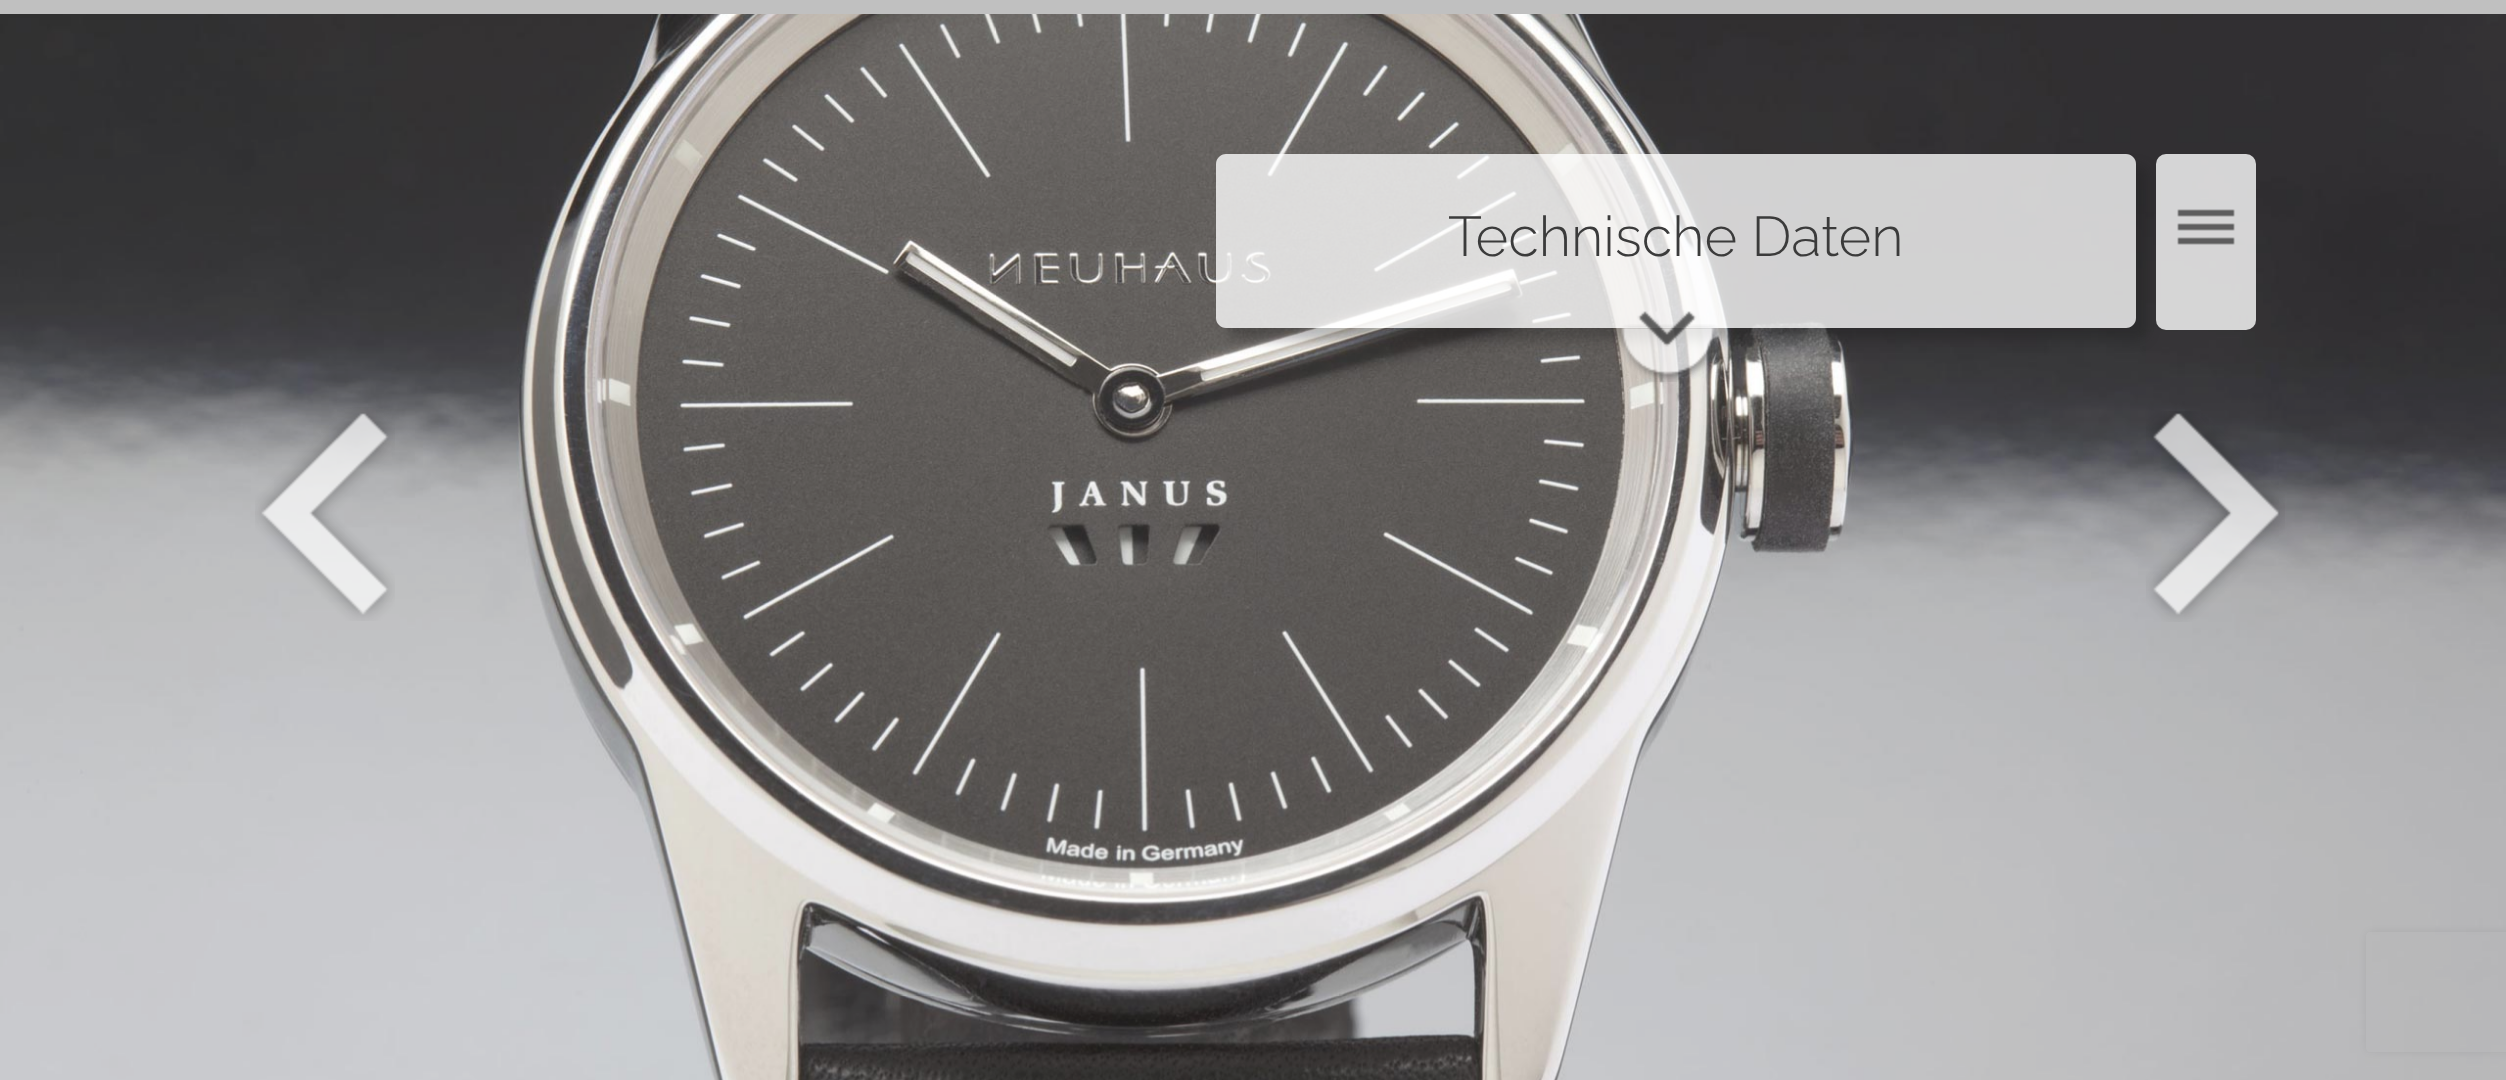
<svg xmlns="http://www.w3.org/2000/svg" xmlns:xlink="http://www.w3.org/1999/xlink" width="2506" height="1080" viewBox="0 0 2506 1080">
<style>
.cls-1{font:300 56px Raleway;fill:#3b3b3b}
</style>
<defs>
<clipPath id="clip1"><path d="M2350 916H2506V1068H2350ZM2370 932H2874C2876 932 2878 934 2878 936V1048C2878 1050 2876 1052 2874 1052H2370C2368 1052 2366 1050 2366 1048V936C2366 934 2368 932 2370 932Z" clip-rule="evenodd"/></clipPath>
<clipPath id="clip2"><path d="M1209 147H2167V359H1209ZM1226 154H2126C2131.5 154 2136 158.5 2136 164V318C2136 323.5 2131.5 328 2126 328H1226C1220.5 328 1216 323.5 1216 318V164C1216 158.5 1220.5 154 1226 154Z" clip-rule="evenodd"/></clipPath>
</defs>
<rect width="100%" height="100%" fill="#ffffff"/>
<rect fill="#c0c0c0" x="0" y="0" width="2506" height="14"/>
<g clip-path="url(#clip1)">
<rect fill="#8e8e8e" filter="blur(5px)" x="2366" y="932" width="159" height="120" rx="4"/>
</g>
<image xlink:href="image0.png" x="0" y="14" width="2506" height="1066"/>
<g clip-path="url(#clip2)">
<rect fill="#1c1c1c" fill-opacity="0.3" filter="blur(6px)" x="1228" y="166" width="920" height="174" rx="10"/>
</g>
<path fill="#ffffff" fill-opacity="0.78" d="M1226 154H2126C2131.5 154 2136 158.5 2136 164V268H1216V164C1216 158.5 1220.5 154 1226 154Z"/>
<path fill="#ffffff" fill-opacity="0.78" d="M1216 268H2136V318C2136 323.5 2131.5 328 2126 328H1226C1220.5 328 1216 323.5 1216 318Z"/>
<image xlink:href="image1.png" x="1619" y="311" width="103" height="71"/>
<image xlink:href="image2.png" x="255" y="407" width="140" height="214"/>
<image xlink:href="image3.png" x="2146" y="411" width="139" height="211"/>
<rect fill="#ffffff" fill-opacity="0.8" x="2156" y="154" width="100" height="176" rx="10"/>
<image xlink:href="image4.png" x="2177" y="209" width="58" height="36"/>
<text class="cls-1" x="1448" y="256">Technische Daten</text>
</svg>
